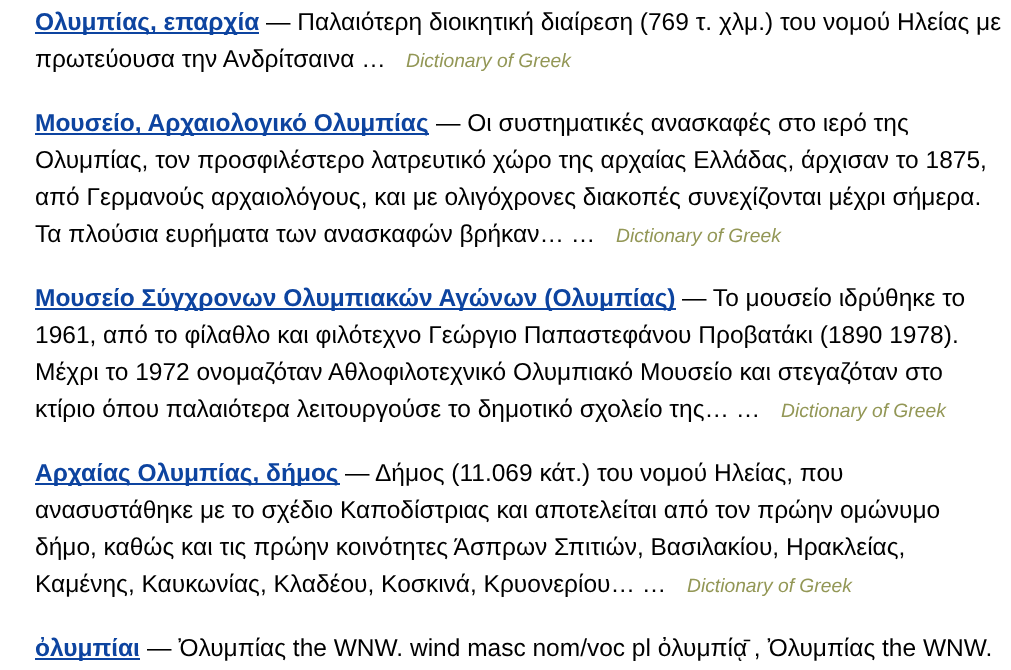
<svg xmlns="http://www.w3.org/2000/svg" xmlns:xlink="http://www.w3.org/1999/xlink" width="1011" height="670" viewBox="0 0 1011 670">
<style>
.cls-1{font:bold 24.5px Liberation Sans;fill:#0d44a0}
.cls-2{font:24.5px Liberation Sans;fill:#000000}
.cls-3{font:italic 19.25px Liberation Sans;fill:#939756}
</style>
<rect width="100%" height="100%" fill="#ffffff"/>
<rect fill="#0d44a0" x="35" y="32" width="224" height="2"/>
<rect fill="#0d44a0" x="35" y="133" width="394" height="2"/>
<rect fill="#0d44a0" x="35" y="308" width="641" height="2"/>
<rect fill="#0d44a0" x="35" y="483" width="305" height="2"/>
<rect fill="#0d44a0" x="35" y="658" width="105" height="2"/>
<text class="cls-1" x="35" y="30">Ολυμπίας, επαρχία</text>
<text class="cls-2" x="266" y="30">— Παλαιότερη διοικητική διαίρεση (769 τ. χλμ.) του νομού Ηλείας με</text>
<text class="cls-2" x="35" y="67">πρωτεύουσα την Ανδρίτσαινα …</text>
<text class="cls-3" x="406" y="67">Dictionary of Greek</text>
<text class="cls-1" x="35" y="131">Μουσείο, Αρχαιολογικό Ολυμπίας</text>
<text class="cls-2" x="436" y="131">— Οι συστηματικές ανασκαφές στο ιερό της</text>
<text class="cls-2"><tspan x="35" y="168">Ολυμπίας, τον προσφιλέστερο λατρευτικό χώρο της αρχαίας Ελλάδας, άρχισαν το 1875,</tspan><tspan x="35" y="205">από Γερμανούς αρχαιολόγους, και με ολιγόχρονες διακοπές συνεχίζονται μέχρι σήμερα.</tspan><tspan x="35" y="242">Τα πλούσια ευρήματα των ανασκαφών βρήκαν… …</tspan></text>
<text class="cls-3" x="616" y="242">Dictionary of Greek</text>
<text class="cls-1" x="35" y="306">Μουσείο Σύγχρονων Ολυμπιακών Αγώνων (Ολυμπίας)</text>
<text class="cls-2" x="682" y="306">— Το μουσείο ιδρύθηκε το</text>
<text class="cls-2"><tspan x="35" y="343">1961, από το φίλαθλο και φιλότεχνο Γεώργιο Παπαστεφάνου Προβατάκι (1890 1978).</tspan><tspan x="35" y="380">Μέχρι το 1972 ονομαζόταν Αθλοφιλοτεχνικό Ολυμπιακό Μουσείο και στεγαζόταν στο</tspan><tspan x="35" y="417">κτίριο όπου παλαιότερα λειτουργούσε το δημοτικό σχολείο της… …</tspan></text>
<text class="cls-3" x="781" y="417">Dictionary of Greek</text>
<text class="cls-1" x="35" y="481">Αρχαίας Ολυμπίας, δήμος</text>
<text class="cls-2" x="345" y="481">— Δήμος (11.069 κάτ.) του νομού Ηλείας, που</text>
<text class="cls-2"><tspan x="35" y="518">ανασυστάθηκε με το σχέδιο Καποδίστριας και αποτελείται από τον πρώην ομώνυμο</tspan><tspan x="35" y="555">δήμο, καθώς και τις πρώην κοινότητες Άσπρων Σπιτιών, Βασιλακίου, Ηρακλείας,</tspan><tspan x="35" y="592">Καμένης, Καυκωνίας, Κλαδέου, Κοσκινά, Κρυονερίου… …</tspan></text>
<text class="cls-3" x="687" y="592">Dictionary of Greek</text>
<text class="cls-1" x="35" y="656">ὀλυμπίαι</text>
<text class="cls-2" x="147" y="656">— Ὀλυμπίας the WNW. wind masc nom/voc pl ὀλυμπίᾱͅ , Ὀλυμπίας the WNW.</text>
</svg>
